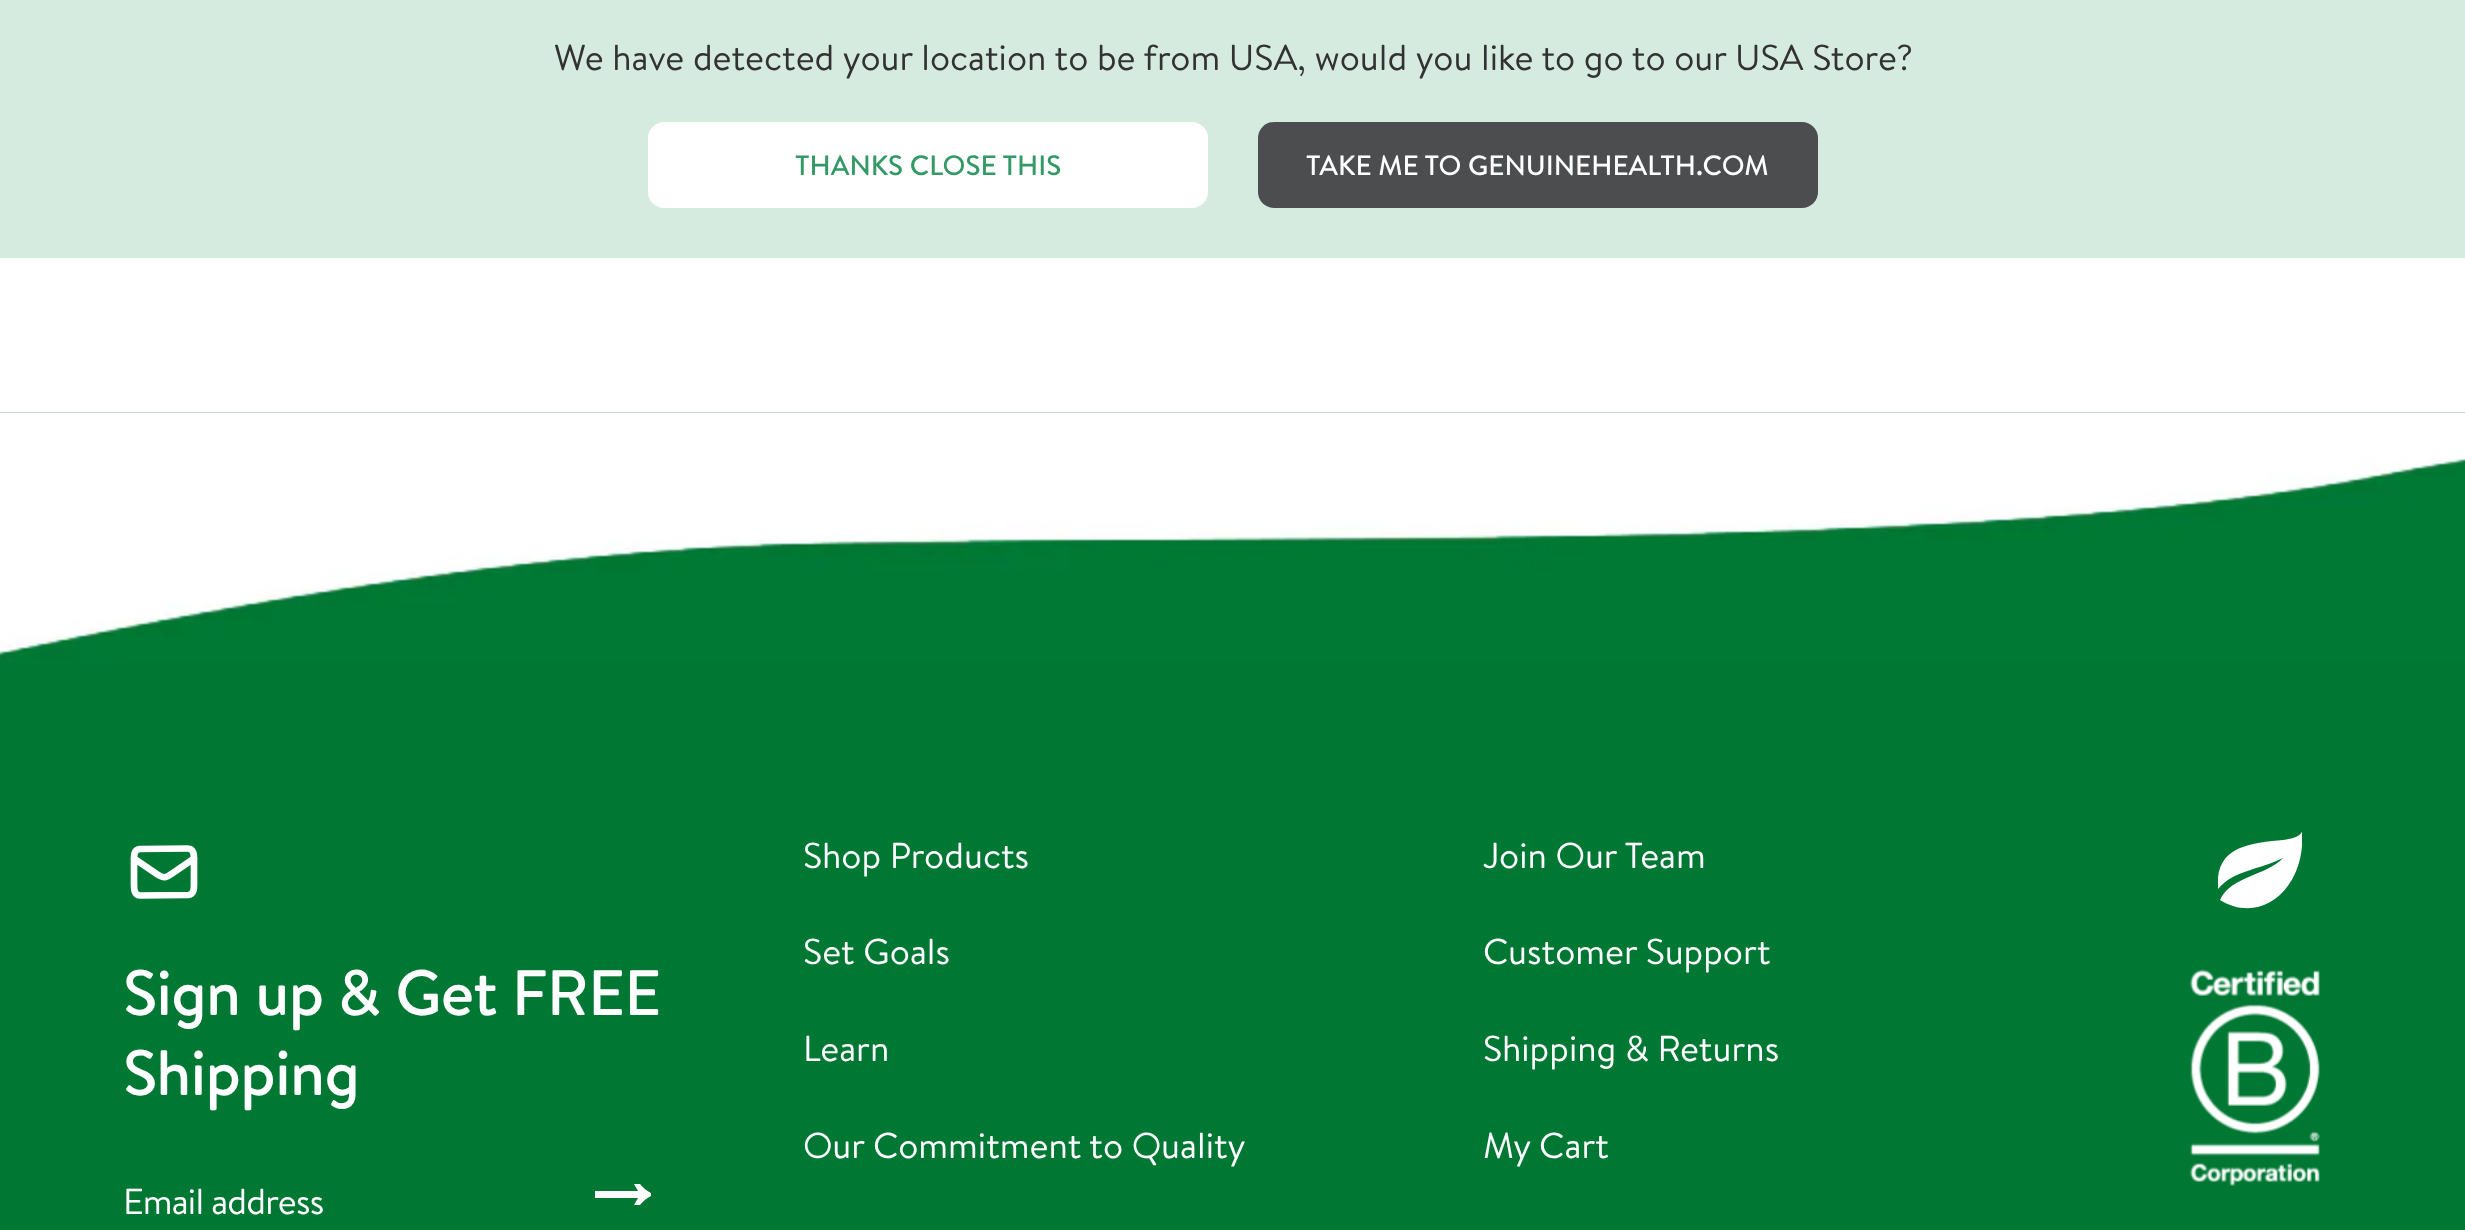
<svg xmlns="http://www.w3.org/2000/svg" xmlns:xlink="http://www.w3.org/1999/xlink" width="2465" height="1230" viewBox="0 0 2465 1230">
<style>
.cls-1{font:36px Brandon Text;fill:#333232}
.cls-2{font:500 28px Brandon Text;fill:#339966}
.cls-3{font:500 28px Brandon Text;fill:#ffffff}
.cls-4{font:500 64px Brandon Text;letter-spacing:-0.6px;fill:#ffffff}
.cls-5{font:36px Brandon Text;letter-spacing:-0.75px;fill:#ffffff}
.cls-6{font:36px Brandon Text;fill:#ffffff}
</style>
<defs>
<clipPath id="clip1"><rect x="2218" y="832" width="84" height="78"/></clipPath>
</defs>
<rect width="100%" height="100%" fill="#ffffff"/>
<rect fill="#d6ebe0" x="0" y="0" width="2465" height="258"/>
<rect fill="#ffffff" x="648" y="122" width="560" height="86" rx="16"/>
<rect fill="#4c4d4f" x="1258" y="122" width="560" height="86" rx="16"/>
<rect fill="#007834" x="0" y="412" width="2465" height="818"/>
<image xlink:href="image0.png" x="0" y="412" width="2465" height="251"/>
<path fill="none" stroke="#ffffff" stroke-width="6.7" stroke-linecap="round" stroke-linejoin="round" d="M134 858.5L156 873.5C166 880 165.5 877.5 176.5 870.5L194 858.5M140.5 895.5L188.5 895C194.5 894 194 888 194 883V861C194 856 194.5 848.5 187.5 848.5L139.5 849C133.5 850 134 856 134 861V883C134 888 133.5 895.5 140.5 895.5Z"/>
<path fill="#ffffff" d="M634 1205L638 1198H595V1191H638L634 1184H640C643 1188 647 1191 651 1193V1196C647 1198 643 1201 640 1205Z"/>
<g clip-path="url(#clip1)">
<path fill="#ffffff" fill-rule="evenodd" d="M2240 848C2267 837 2295 844 2302 832C2306 887 2262 926 2220 900C2231 876 2266 876 2283 858C2259 870 2234 870 2218 889C2216 865 2226 854 2240 848Z"/>
</g>
<image xlink:href="image1.png" x="2189" y="969" width="131" height="217"/>
<text class="cls-1" x="554" y="70">We have detected your location to be from USA, would you like to go to our USA Store?</text>
<text class="cls-2" x="795" y="175">THANKS CLOSE THIS</text>
<text class="cls-3" x="1306" y="175">TAKE ME TO GENUINEHEALTH.COM</text>
<text class="cls-4"><tspan x="123" y="1015">Sign up &amp; Get FREE</tspan><tspan x="123" y="1095">Shipping</tspan></text>
<text class="cls-5" x="123" y="1214">Email address</text>
<text class="cls-6" x="803" y="868">Shop Products</text>
<text class="cls-6" x="803" y="964">Set Goals</text>
<text class="cls-6" x="803" y="1061">Learn</text>
<text class="cls-6" x="803" y="1158">Our Commitment to Quality</text>
<text class="cls-6" x="1483" y="868">Join Our Team</text>
<text class="cls-6" x="1483" y="964">Customer Support</text>
<text class="cls-6" x="1483" y="1061">Shipping &amp; Returns</text>
<text class="cls-6" x="1483" y="1158">My Cart</text>
</svg>
